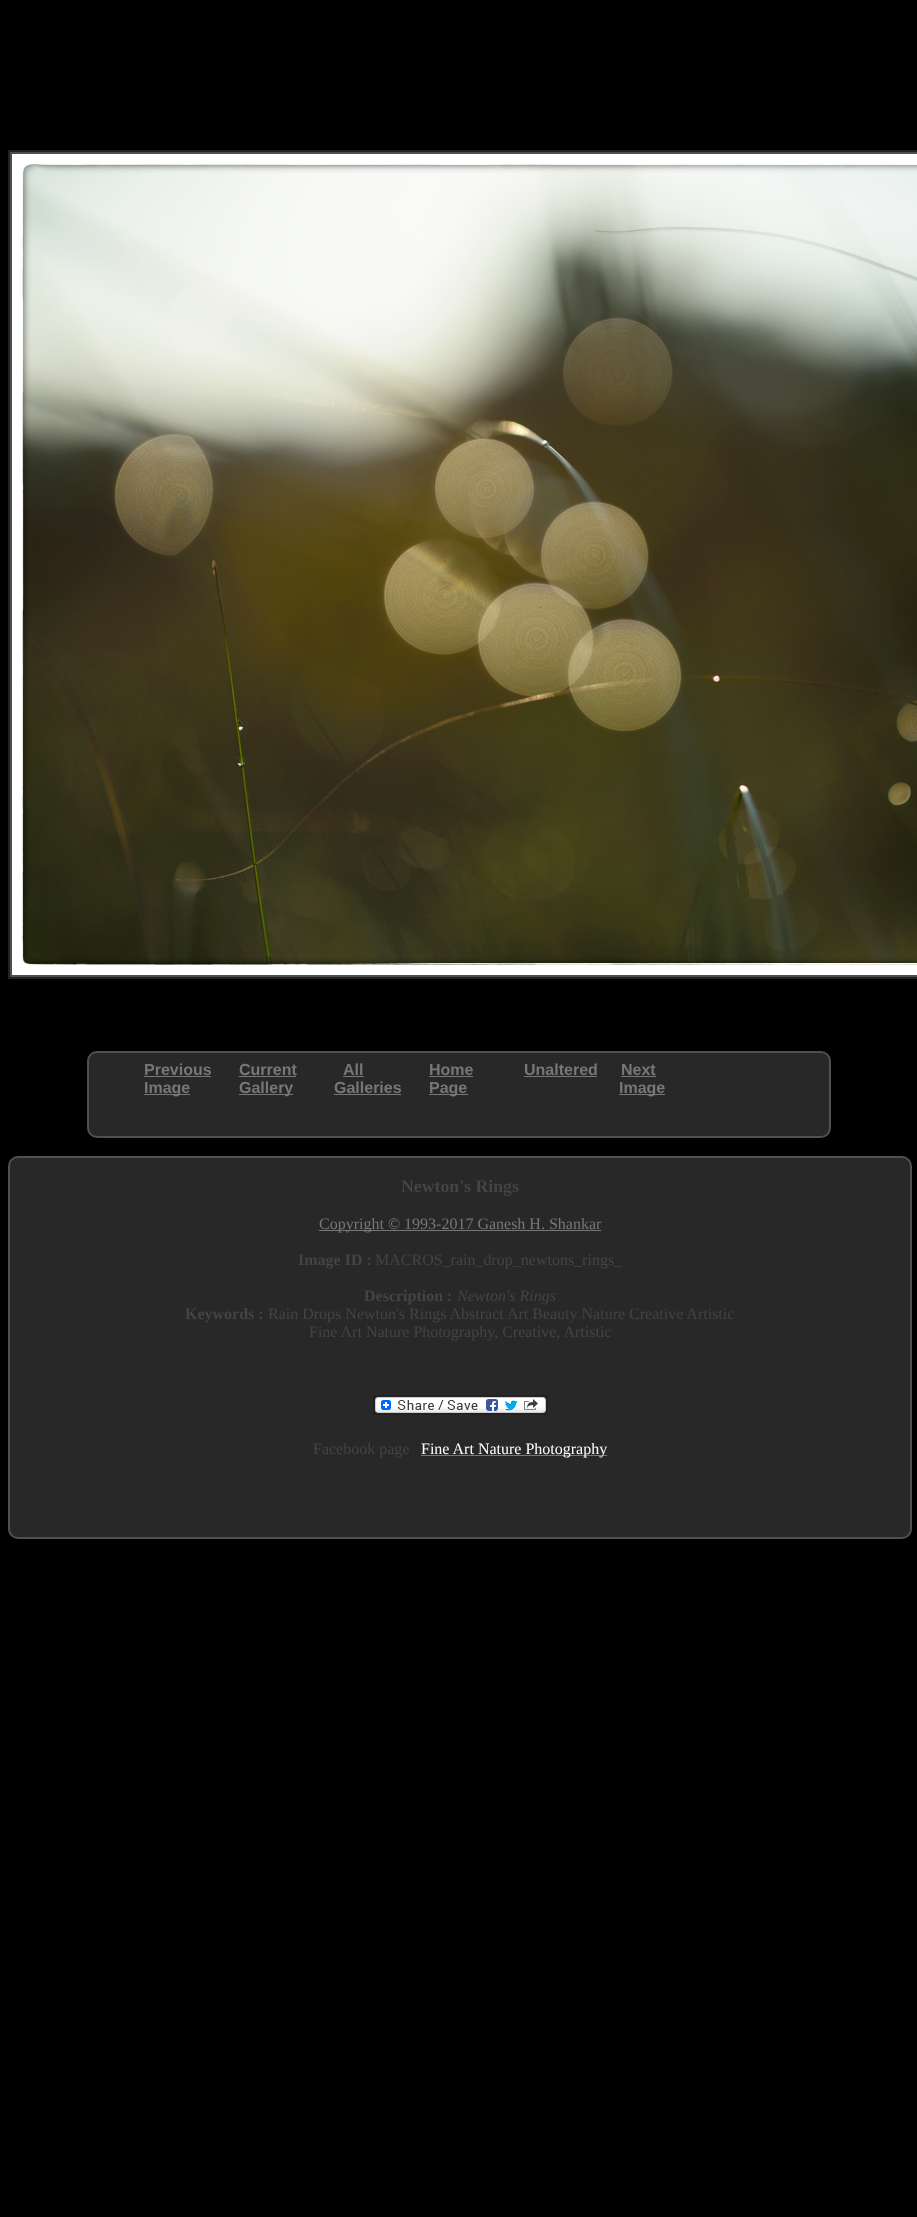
<svg xmlns="http://www.w3.org/2000/svg" xmlns:xlink="http://www.w3.org/1999/xlink" width="917" height="2217" viewBox="0 0 917 2217">
<style>
.cls-1{font:bold 16px Liberation Sans;fill:#777777}
.cls-2{font:bold 17.75px Liberation Serif;fill:#444444}
.cls-3{font:16px Liberation Serif;fill:#777777}
.cls-4{font:bold 16px Liberation Serif;fill:#444444}
.cls-5{font:16px Liberation Serif;fill:#444444}
.cls-6{font:italic 16px Liberation Serif;fill:#444444}
.cls-7{font:16px Liberation Serif;fill:#ffffff}
</style>
<rect width="100%" height="100%" fill="#000000"/>
<rect fill="none" stroke="#222222" stroke-width="2" x="9" y="151" width="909" height="827"/>
<image xlink:href="image0.png" x="10" y="152" width="907" height="825"/>
<rect fill="#282828" stroke="#505050" stroke-width="2" x="88" y="1052" width="742" height="85" rx="9"/>
<rect fill="#777777" x="144" y="1076" width="67" height="1"/>
<rect fill="#777777" x="144" y="1094" width="46" height="1"/>
<rect fill="#777777" x="239" y="1076" width="57" height="1"/>
<rect fill="#777777" x="239" y="1094" width="54" height="1"/>
<rect fill="#777777" x="343" y="1076" width="21" height="1"/>
<rect fill="#777777" x="334" y="1094" width="67" height="1"/>
<rect fill="#777777" x="429" y="1076" width="44" height="1"/>
<rect fill="#777777" x="429" y="1094" width="39" height="1"/>
<rect fill="#777777" x="524" y="1076" width="73" height="1"/>
<rect fill="#777777" x="621" y="1076" width="35" height="1"/>
<rect fill="#777777" x="619" y="1094" width="46" height="1"/>
<rect fill="#282828" stroke="#505050" stroke-width="2" x="9" y="1157" width="902" height="381" rx="9"/>
<rect fill="#777777" x="319" y="1230" width="282" height="1"/>
<rect fill="none" stroke="#222222" stroke-width="2" x="374" y="1396" width="173" height="18"/>
<image xlink:href="image1.png" x="375" y="1397" width="171" height="16"/>
<rect fill="#777777" x="421" y="1455" width="186" height="1"/>
<text class="cls-1"><tspan x="144" y="1075">Previous</tspan><tspan x="144" y="1093">Image</tspan></text>
<text class="cls-1"><tspan x="239" y="1075">Current</tspan><tspan x="239" y="1093">Gallery</tspan></text>
<text class="cls-1" x="343" y="1075">All</text>
<text class="cls-1" x="334" y="1093">Galleries</text>
<text class="cls-1"><tspan x="429" y="1075">Home</tspan><tspan x="429" y="1093">Page</tspan></text>
<text class="cls-1" x="524" y="1075">Unaltered</text>
<text class="cls-1" x="621" y="1075">Next</text>
<text class="cls-1" x="619" y="1093">Image</text>
<text class="cls-2" x="401" y="1192">Newton's Rings</text>
<text class="cls-3" x="319" y="1229">Copyright © 1993-2017 Ganesh H. Shankar</text>
<text class="cls-4" x="298" y="1265">Image ID :</text>
<text class="cls-5" x="375" y="1265">MACROS_rain_drop_newtons_rings_</text>
<text class="cls-4" x="364" y="1301">Description :</text>
<text class="cls-6" x="457" y="1301">Newton's Rings</text>
<text class="cls-4" x="185" y="1319">Keywords :</text>
<text class="cls-5" x="268" y="1319">Rain Drops Newton's Rings Abstract Art Beauty Nature Creative Artistic</text>
<text class="cls-5" x="309" y="1337">Fine Art Nature Photography, Creative, Artistic</text>
<text class="cls-5" x="313" y="1454">Facebook page</text>
<text class="cls-7" x="421" y="1454">Fine Art Nature Photography</text>
</svg>
